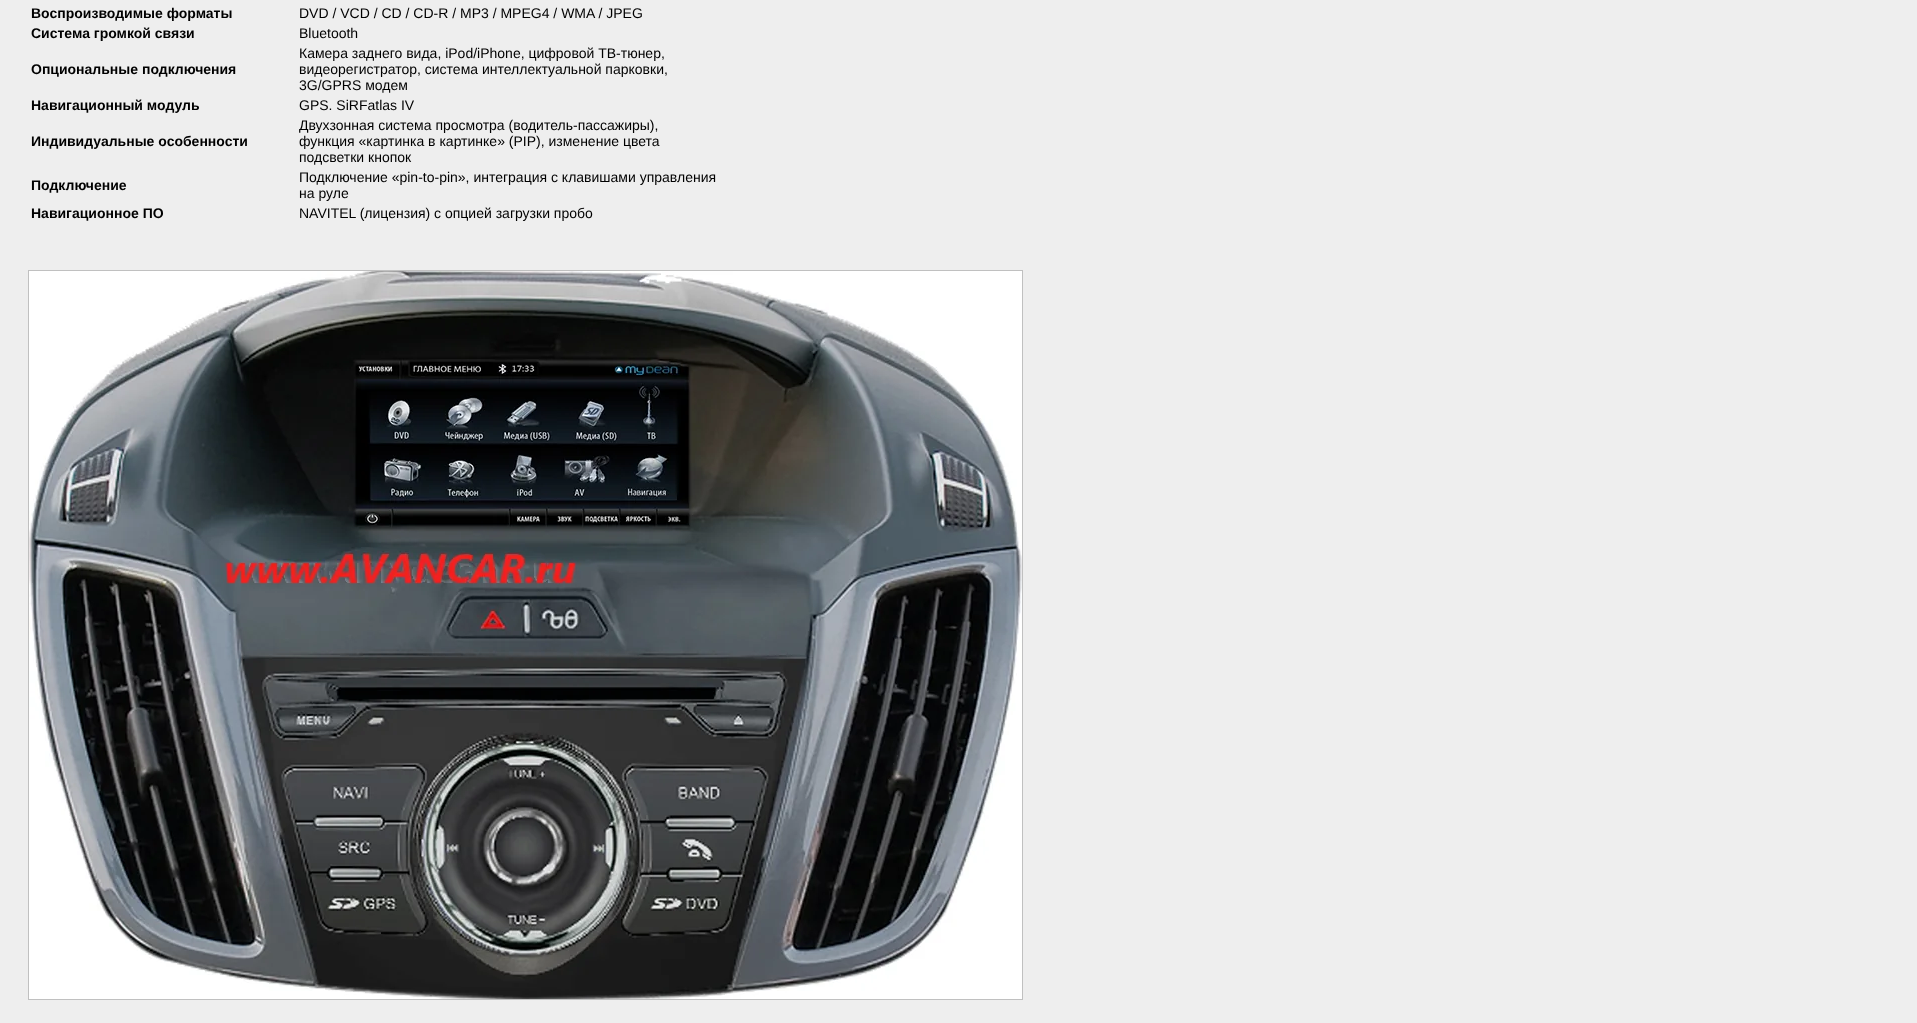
<svg xmlns="http://www.w3.org/2000/svg" xmlns:xlink="http://www.w3.org/1999/xlink" width="1917" height="1023" viewBox="0 0 1917 1023">
<style>
.cls-1{font:bold 14px Liberation Sans;fill:#000000}
.cls-2{font:14px Liberation Sans;fill:#000000}
</style>
<rect width="100%" height="100%" fill="#eeeeee"/>
<rect fill="none" stroke="#c0c0c0" x="28.5" y="270.5" width="994" height="729"/>
<image xlink:href="image0.png" x="29" y="271" width="993" height="728"/>
<text class="cls-1" x="31" y="18">Воспроизводимые форматы</text>
<text class="cls-2" x="299" y="18">DVD / VCD / CD / CD-R / MP3 / MPEG4 / WMA / JPEG</text>
<text class="cls-1" x="31" y="38">Система громкой связи</text>
<text class="cls-2" x="299" y="38">Bluetooth</text>
<text class="cls-1" x="31" y="74">Опциональные подключения</text>
<text class="cls-2"><tspan x="299" y="58">Камера заднего вида, iPod/iPhone, цифровой ТВ-тюнер,</tspan><tspan x="299" y="74">видеорегистратор, система интеллектуальной парковки,</tspan><tspan x="299" y="90">3G/GPRS модем</tspan></text>
<text class="cls-1" x="31" y="110">Навигационный модуль</text>
<text class="cls-2" x="299" y="110">GPS. SiRFatlas IV</text>
<text class="cls-1" x="31" y="146">Индивидуальные особенности</text>
<text class="cls-2"><tspan x="299" y="130">Двухзонная система просмотра (водитель-пассажиры),</tspan><tspan x="299" y="146">функция «картинка в картинке» (PIP), изменение цвета</tspan><tspan x="299" y="162">подсветки кнопок</tspan></text>
<text class="cls-1" x="31" y="190">Подключение</text>
<text class="cls-2"><tspan x="299" y="182">Подключение «pin-to-pin», интеграция с клавишами управления</tspan><tspan x="299" y="198">на руле</tspan></text>
<text class="cls-1" x="31" y="218">Навигационное ПО</text>
<text class="cls-2" x="299" y="218">NAVITEL (лицензия) с опцией загрузки пробо</text>
</svg>
